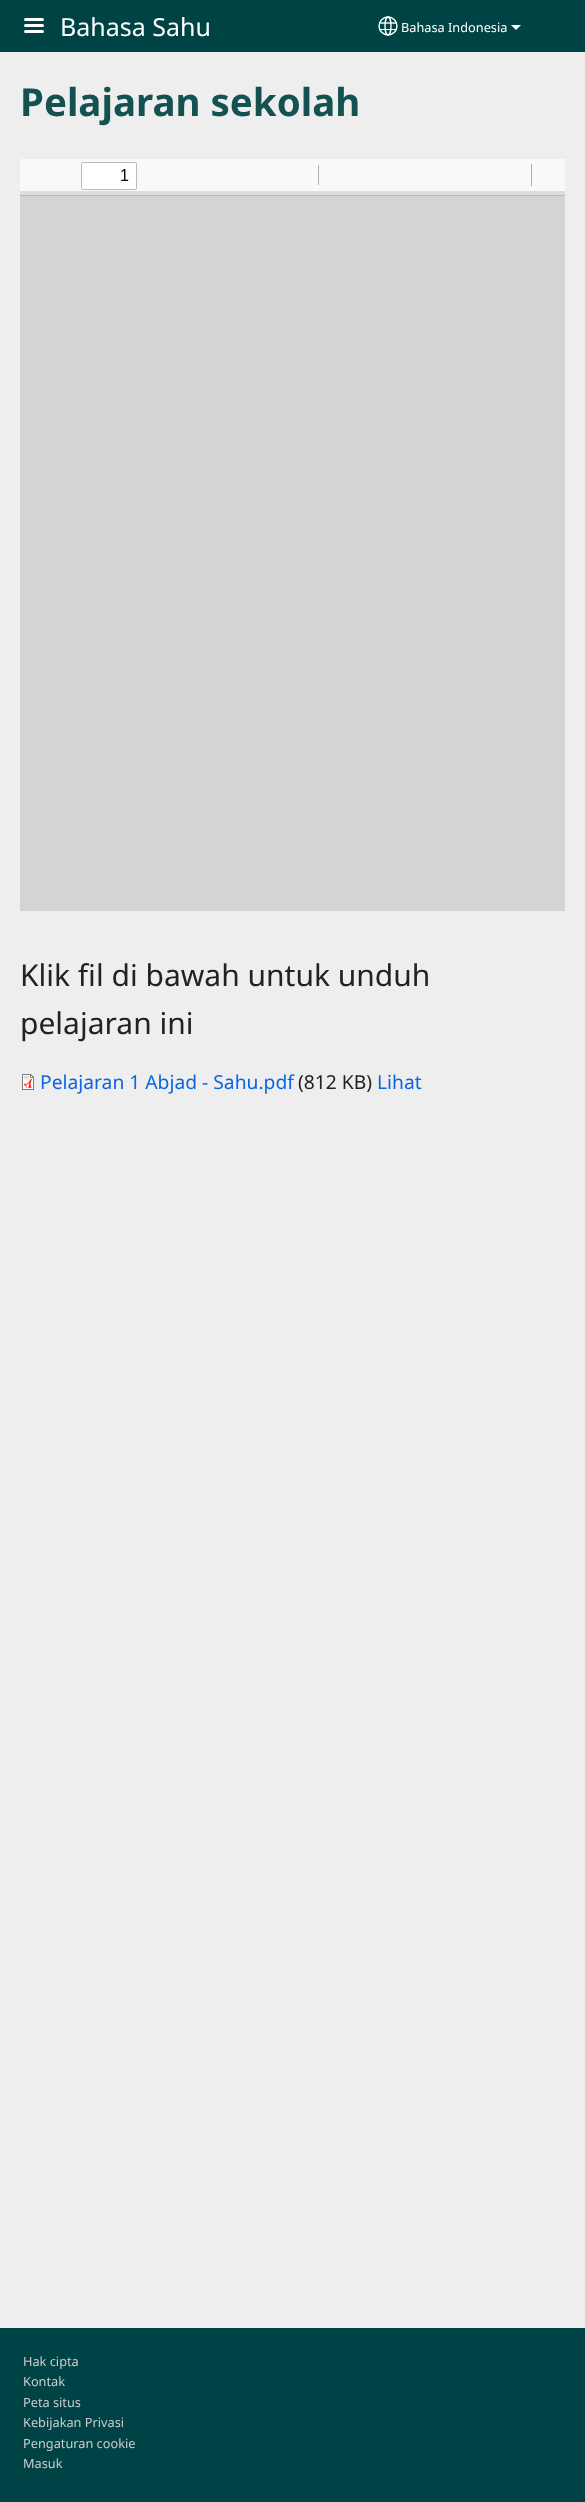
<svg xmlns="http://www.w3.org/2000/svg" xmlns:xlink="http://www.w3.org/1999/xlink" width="585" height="2502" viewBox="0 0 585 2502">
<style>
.cls-1{font:25px Noto Sans;fill:#ffffff}
.cls-2{font:12.75px Noto Sans;fill:#ffffff}
.cls-3{font:bold 38.5px Noto Sans;fill:#135250}
.cls-4{font:30px Noto Sans;fill:#222222}
.cls-5{font:19.25px Noto Sans;fill:#0c66e4}
.cls-6{font:19.25px Noto Sans;fill:#222222}
.cls-7{font:12.75px Noto Sans;fill:#cccccc}
</style>
<defs>
<linearGradient id="g1" gradientUnits="userSpaceOnUse" x1="293" y1="0" x2="293" y2="52"><stop offset="0" stop-color="#004345"/><stop offset="1" stop-color="#004346"/></linearGradient>
</defs>
<rect width="100%" height="100%" fill="#eeeeee"/>
<rect fill="url(#g1)" x="0" y="0" width="585" height="52"/>
<rect fill="#ffffff" x="24" y="18" width="20" height="3" rx="1.5"/>
<rect fill="#ffffff" x="24" y="24" width="20" height="3" rx="1.5"/>
<rect fill="#ffffff" x="24" y="30" width="20" height="3" rx="1.5"/>
<circle fill="none" stroke="#ffffff" stroke-width="1.4" cx="388" cy="26" r="9"/>
<ellipse fill="none" stroke="#ffffff" stroke-width="1.4" cx="388" cy="26" rx="3" ry="9"/>
<path fill="none" stroke="#ffffff" stroke-width="1.4" d="M379 23H396.5"/>
<rect fill="#ffffff" x="379" y="29" width="18" height="1"/>
<path fill="#ffffff" d="M511 25H521L516 30Z"/>
<image xlink:href="image0.png" x="20" y="159" width="545" height="752"/>
<image xlink:href="image1.png" x="22" y="1074" width="12" height="16"/>
<rect fill="#004347" x="0" y="2328" width="585" height="174"/>
<text class="cls-1" x="60" y="36">Bahasa Sahu</text>
<text class="cls-2" x="401" y="32">Bahasa Indonesia</text>
<text class="cls-3" x="20" y="116">Pelajaran sekolah</text>
<text class="cls-4"><tspan x="20" y="986">Klik fil di bawah untuk unduh</tspan><tspan x="20" y="1034">pelajaran ini</tspan></text>
<text class="cls-5" x="40" y="1089">Pelajaran 1 Abjad - Sahu.pdf</text>
<text class="cls-6" x="298" y="1089">(812 KB)</text>
<text class="cls-5" x="377" y="1089">Lihat</text>
<text class="cls-7"><tspan x="23" y="2366">Hak cipta</tspan><tspan x="23" y="2386">Kontak</tspan><tspan x="23" y="2407">Peta situs</tspan><tspan x="23" y="2427">Kebijakan Privasi</tspan><tspan x="23" y="2448">Pengaturan cookie</tspan><tspan x="23" y="2468">Masuk</tspan></text>
</svg>
